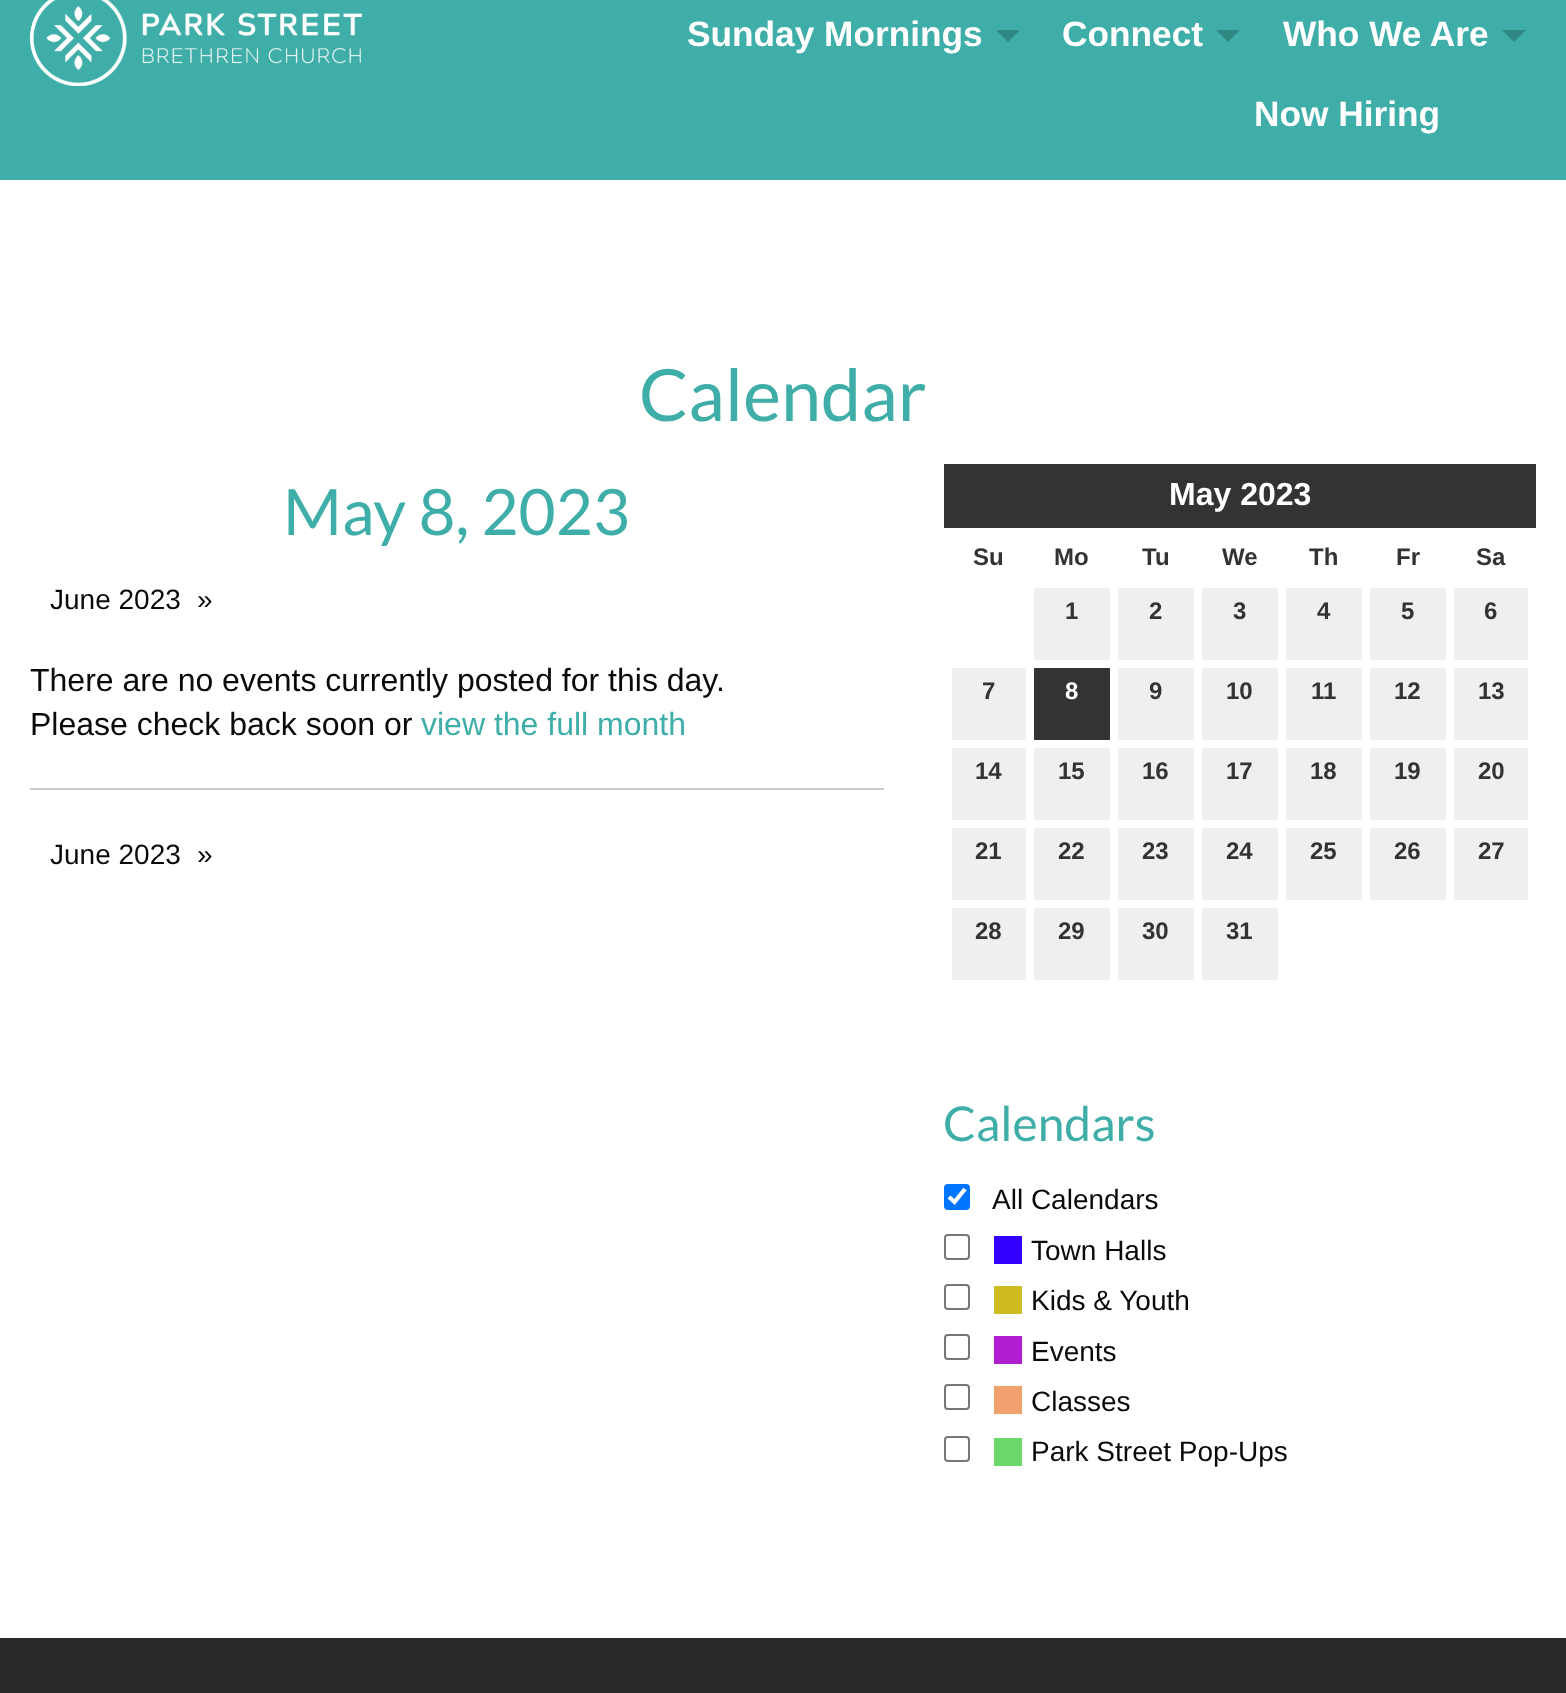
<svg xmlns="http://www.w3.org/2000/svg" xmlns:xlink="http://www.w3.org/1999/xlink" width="1566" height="1693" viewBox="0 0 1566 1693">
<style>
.cls-1{font:bold 35.25px Liberation Sans;fill:#ffffff}
.cls-2{font:72px Lato;fill:#3faea8}
.cls-3{font:64px Lato;fill:#3faea8}
.cls-4{font:28px Liberation Sans;fill:#0a0a0a}
.cls-5{font:32px Liberation Sans;fill:#0a0a0a}
.cls-6{font:32px Liberation Sans;fill:#3faea8}
.cls-7{font:bold 32px Liberation Sans;fill:#ffffff}
.cls-8{font:bold 24px Liberation Sans;fill:#333333}
.cls-9{font:bold 24px Liberation Sans;fill:#ffffff}
.cls-10{font:48px Lato;fill:#3faea8}
</style>
<rect width="100%" height="100%" fill="#ffffff"/>
<rect fill="#3faea8" x="0" y="0" width="1566" height="180"/>
<image xlink:href="image0.png" x="30" y="0" width="332" height="86"/>
<path fill="#308883" d="M996 30H1020L1008 42Z"/>
<path fill="#308883" d="M1216 30H1240L1228 42Z"/>
<path fill="#308883" d="M1502 30H1526L1514 42Z"/>
<rect fill="#cacaca" x="30" y="788" width="854" height="2"/>
<rect fill="#333333" x="944" y="464" width="592" height="64"/>
<rect fill="#efefef" x="1034" y="588" width="76" height="72"/>
<rect fill="#efefef" x="1118" y="588" width="76" height="72"/>
<rect fill="#efefef" x="1202" y="588" width="76" height="72"/>
<rect fill="#efefef" x="1286" y="588" width="76" height="72"/>
<rect fill="#efefef" x="1370" y="588" width="76" height="72"/>
<rect fill="#efefef" x="1454" y="588" width="74" height="72"/>
<rect fill="#efefef" x="952" y="668" width="74" height="72"/>
<rect fill="#333333" x="1034" y="668" width="76" height="72"/>
<rect fill="#efefef" x="1118" y="668" width="76" height="72"/>
<rect fill="#efefef" x="1202" y="668" width="76" height="72"/>
<rect fill="#efefef" x="1286" y="668" width="76" height="72"/>
<rect fill="#efefef" x="1370" y="668" width="76" height="72"/>
<rect fill="#efefef" x="1454" y="668" width="74" height="72"/>
<rect fill="#efefef" x="952" y="748" width="74" height="72"/>
<rect fill="#efefef" x="1034" y="748" width="76" height="72"/>
<rect fill="#efefef" x="1118" y="748" width="76" height="72"/>
<rect fill="#efefef" x="1202" y="748" width="76" height="72"/>
<rect fill="#efefef" x="1286" y="748" width="76" height="72"/>
<rect fill="#efefef" x="1370" y="748" width="76" height="72"/>
<rect fill="#efefef" x="1454" y="748" width="74" height="72"/>
<rect fill="#efefef" x="952" y="828" width="74" height="72"/>
<rect fill="#efefef" x="1034" y="828" width="76" height="72"/>
<rect fill="#efefef" x="1118" y="828" width="76" height="72"/>
<rect fill="#efefef" x="1202" y="828" width="76" height="72"/>
<rect fill="#efefef" x="1286" y="828" width="76" height="72"/>
<rect fill="#efefef" x="1370" y="828" width="76" height="72"/>
<rect fill="#efefef" x="1454" y="828" width="74" height="72"/>
<rect fill="#efefef" x="952" y="908" width="74" height="72"/>
<rect fill="#efefef" x="1034" y="908" width="76" height="72"/>
<rect fill="#efefef" x="1118" y="908" width="76" height="72"/>
<rect fill="#efefef" x="1202" y="908" width="76" height="72"/>
<rect fill="#0075ff" x="944" y="1184" width="26" height="26" rx="4"/>
<path fill="none" stroke="#ffffff" stroke-width="4.2" d="M949 1197L954.5 1202L965 1189"/>
<rect fill="none" stroke="#767676" stroke-width="2" x="945" y="1235" width="24" height="24" rx="3"/>
<rect fill="#3300ff" x="994" y="1236" width="28" height="28"/>
<rect fill="none" stroke="#767676" stroke-width="2" x="945" y="1285" width="24" height="24" rx="3"/>
<rect fill="#cdbb21" x="994" y="1286" width="28" height="28"/>
<rect fill="none" stroke="#767676" stroke-width="2" x="945" y="1335" width="24" height="24" rx="3"/>
<rect fill="#b11dd1" x="994" y="1336" width="28" height="28"/>
<rect fill="none" stroke="#767676" stroke-width="2" x="945" y="1385" width="24" height="24" rx="3"/>
<rect fill="#efa06c" x="994" y="1386" width="28" height="28"/>
<rect fill="none" stroke="#767676" stroke-width="2" x="945" y="1437" width="24" height="24" rx="3"/>
<rect fill="#6ad86a" x="994" y="1438" width="28" height="28"/>
<rect fill="#292826" x="0" y="1638" width="1566" height="55"/>
<text class="cls-1" x="687" y="46">Sunday Mornings</text>
<text class="cls-1" x="1062" y="46">Connect</text>
<text class="cls-1" x="1283" y="46">Who We Are</text>
<text class="cls-1" x="1254" y="126">Now Hiring</text>
<text class="cls-2" x="639" y="421">Calendar</text>
<text class="cls-3" x="283" y="535">May 8, 2023</text>
<text class="cls-4" x="50" y="609">June 2023</text>
<text class="cls-4" x="197" y="609">»</text>
<text class="cls-5"><tspan x="30" y="691">There are no events currently posted for this day.</tspan><tspan x="30" y="735">Please check back soon or</tspan></text>
<text class="cls-6" x="421" y="735">view the full month</text>
<text class="cls-4" x="50" y="864">June 2023</text>
<text class="cls-4" x="197" y="864">»</text>
<text class="cls-7" x="1169" y="505">May 2023</text>
<text class="cls-8" x="973" y="565">Su</text>
<text class="cls-8" x="1054" y="565">Mo</text>
<text class="cls-8" x="1142" y="565">Tu</text>
<text class="cls-8" x="1222" y="565">We</text>
<text class="cls-8" x="1309" y="565">Th</text>
<text class="cls-8" x="1396" y="565">Fr</text>
<text class="cls-8" x="1476" y="565">Sa</text>
<text class="cls-8" x="1065" y="619">1</text>
<text class="cls-8" x="1149" y="619">2</text>
<text class="cls-8" x="1233" y="619">3</text>
<text class="cls-8" x="1317" y="619">4</text>
<text class="cls-8" x="1401" y="619">5</text>
<text class="cls-8" x="1484" y="619">6</text>
<text class="cls-8" x="982" y="699">7</text>
<text class="cls-9" x="1065" y="699">8</text>
<text class="cls-8" x="1149" y="699">9</text>
<text class="cls-8" x="1226" y="699">10</text>
<text class="cls-8" x="1311" y="699">11</text>
<text class="cls-8" x="1394" y="699">12</text>
<text class="cls-8" x="1478" y="699">13</text>
<text class="cls-8" x="975" y="779">14</text>
<text class="cls-8" x="1058" y="779">15</text>
<text class="cls-8" x="1142" y="779">16</text>
<text class="cls-8" x="1226" y="779">17</text>
<text class="cls-8" x="1310" y="779">18</text>
<text class="cls-8" x="1394" y="779">19</text>
<text class="cls-8" x="1478" y="779">20</text>
<text class="cls-8" x="975" y="859">21</text>
<text class="cls-8" x="1058" y="859">22</text>
<text class="cls-8" x="1142" y="859">23</text>
<text class="cls-8" x="1226" y="859">24</text>
<text class="cls-8" x="1310" y="859">25</text>
<text class="cls-8" x="1394" y="859">26</text>
<text class="cls-8" x="1478" y="859">27</text>
<text class="cls-8" x="975" y="939">28</text>
<text class="cls-8" x="1058" y="939">29</text>
<text class="cls-8" x="1142" y="939">30</text>
<text class="cls-8" x="1226" y="939">31</text>
<text class="cls-10" x="943" y="1141">Calendars</text>
<text class="cls-4" x="992" y="1209">All Calendars</text>
<text class="cls-4"><tspan x="1031" y="1260">Town Halls</tspan><tspan x="1031" y="1310">Kids &amp; Youth</tspan><tspan x="1031" y="1361">Events</tspan><tspan x="1031" y="1411">Classes</tspan><tspan x="1031" y="1461">Park Street Pop-Ups</tspan></text>
</svg>
